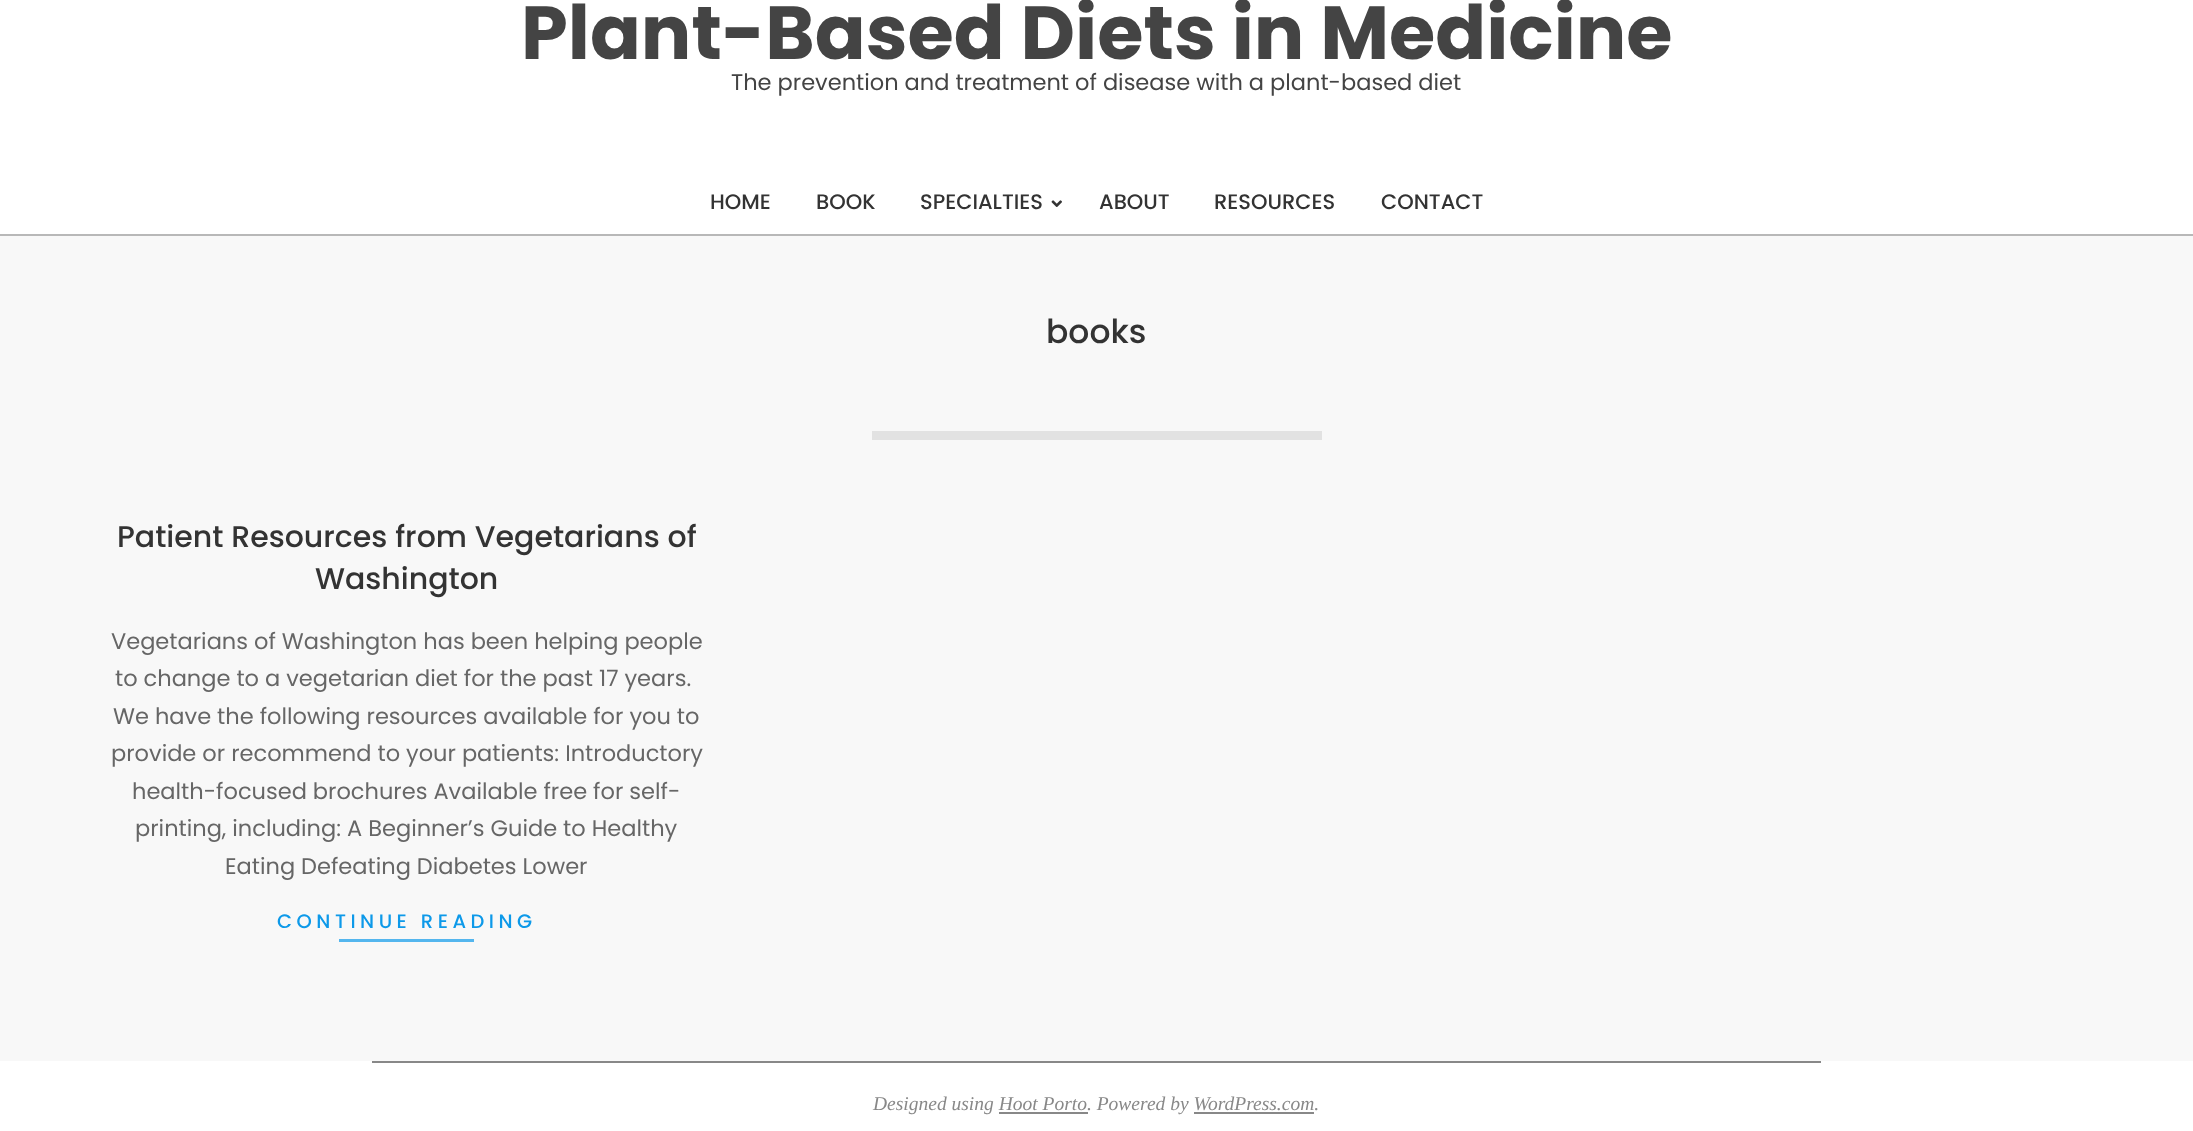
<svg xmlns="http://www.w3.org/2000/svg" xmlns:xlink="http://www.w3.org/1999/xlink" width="2193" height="1131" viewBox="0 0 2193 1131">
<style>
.cls-1{font:bold 75px Poppins;fill:#444444}
.cls-2{font:22.5px Poppins;fill:#444444}
.cls-3{font:500 21px Poppins;fill:#333333}
.cls-4{font:500 33px Poppins;fill:#333333}
.cls-5{font:500 30px Poppins;fill:#333333}
.cls-6{font:22.5px Poppins;fill:#666666}
.cls-7{font:500 19.5px Poppins;letter-spacing:4.5px;fill:#0d99e9}
.cls-8{font:italic 19.5px Liberation Serif;fill:#888888}
</style>
<rect width="100%" height="100%" fill="#ffffff"/>
<rect fill="#b8b8b8" x="0" y="234" width="2193" height="2"/>
<image xlink:href="image0.png" x="1051" y="200" width="11" height="7"/>
<rect fill="#f8f8f8" x="0" y="236" width="2193" height="825"/>
<rect fill="#e2e2e2" x="872" y="431" width="450" height="9"/>
<rect fill="#54b6ee" x="339" y="939" width="135" height="3"/>
<rect fill="#888888" x="372" y="1061" width="1449" height="2"/>
<rect fill="#888888" x="999" y="1112" width="89" height="2"/>
<rect fill="#888888" x="1194" y="1112" width="120" height="2"/>
<text class="cls-1" x="521" y="59">Plant-Based Diets in Medicine</text>
<text class="cls-2" x="731" y="90">The prevention and treatment of disease with a plant-based diet</text>
<text class="cls-3" x="710" y="209">HOME</text>
<text class="cls-3" x="816" y="209">BOOK</text>
<text class="cls-3" x="920" y="209">SPECIALTIES</text>
<text class="cls-3" x="1099" y="209">ABOUT</text>
<text class="cls-3" x="1214" y="209">RESOURCES</text>
<text class="cls-3" x="1381" y="209">CONTACT</text>
<text class="cls-4" x="1046" y="343">books</text>
<text class="cls-5" x="117" y="547">Patient Resources from Vegetarians of</text>
<text class="cls-5" x="315" y="589">Washington</text>
<text class="cls-6" x="111" y="649">Vegetarians of Washington has been helping people</text>
<text class="cls-6" x="115" y="686">to change to a vegetarian diet for the past 17 years.</text>
<text class="cls-6" x="113" y="724">We have the following resources available for you to</text>
<text class="cls-6" x="111" y="761">provide or recommend to your patients: Introductory</text>
<text class="cls-6" x="132" y="799">health-focused brochures Available free for self-</text>
<text class="cls-6" x="135" y="836">printing, including: A Beginner’s Guide to Healthy</text>
<text class="cls-6" x="225" y="874">Eating Defeating Diabetes Lower</text>
<text class="cls-7" x="277" y="928">CONTINUE READING</text>
<text class="cls-8" x="873" y="1110">Designed using Hoot Porto. Powered by WordPress.com.</text>
</svg>
